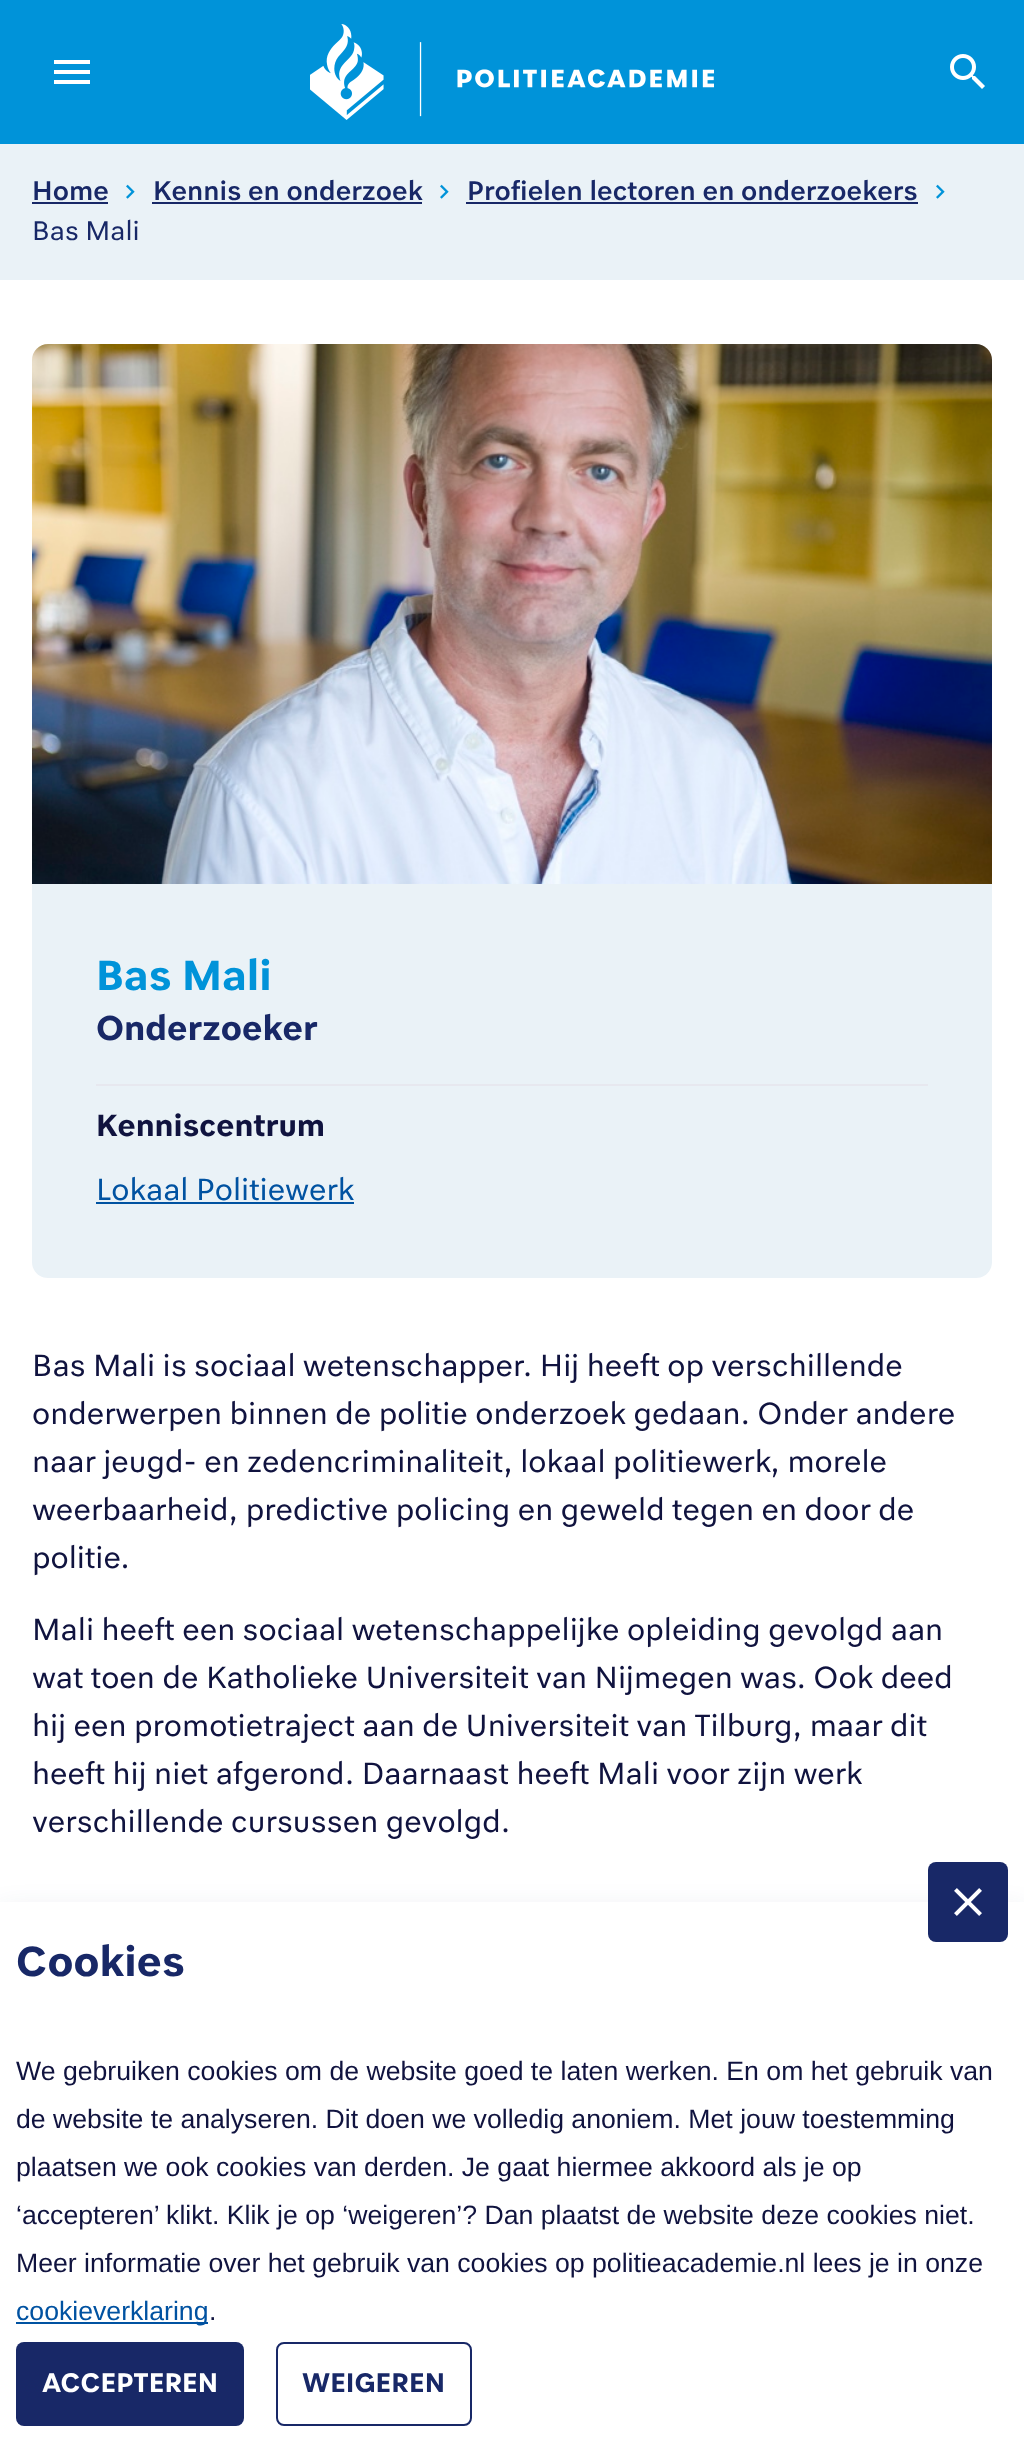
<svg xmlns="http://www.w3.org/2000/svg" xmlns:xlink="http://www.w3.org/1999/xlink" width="1024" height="2458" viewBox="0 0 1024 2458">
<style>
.cls-1{font:500 28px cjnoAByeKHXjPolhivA;fill:#182867}
.cls-2{font:28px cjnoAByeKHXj;fill:#182867}
.cls-3{font:bold 44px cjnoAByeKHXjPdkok;fill:#0093d9}
.cls-4{font:bold 36px cjnoAByeKHXjPdkok;fill:#182867}
.cls-5{font:bold 32px cjnoAByeKHXjPdkok;fill:#10133f}
.cls-6{font:32px cjnoAByeKHXj;fill:#0052a1}
.cls-7{font:32px cjnoAByeKHXj;fill:#10133f}
.cls-8{font:bold 44px cjnoAByeKHXjPdkok;fill:#182867}
.cls-9{font:26.65px Liberation Sans;fill:#10133f}
.cls-10{font:26.65px Liberation Sans;fill:#0052a1}
.cls-11{font:bold 28px cjnoAByeKHXjPdkok;fill:#ffffff}
.cls-12{font:bold 28px cjnoAByeKHXjPdkok;fill:#182867}
</style>
<rect width="100%" height="100%" fill="#ffffff"/>
<rect fill="#0093d9" x="0" y="0" width="1024" height="144"/>
<path fill="#ffffff" d="M54 60H90V64H54ZM54 74V70H90V74ZM54 84V80H90V84Z"/>
<image xlink:href="image0.png" x="310" y="24" width="404" height="96"/>
<image xlink:href="image1.png" x="950" y="54" width="35" height="35"/>
<rect fill="#eaf2f7" x="0" y="144" width="1024" height="136"/>
<rect fill="#182867" x="32" y="202" width="76" height="2"/>
<image xlink:href="image2.png" x="126" y="184" width="9" height="15"/>
<rect fill="#182867" x="152" y="202" width="270" height="2"/>
<image xlink:href="image2.png" x="440" y="184" width="9" height="15"/>
<rect fill="#182867" x="466" y="202" width="452" height="2"/>
<image xlink:href="image2.png" x="936" y="184" width="9" height="15"/>
<image xlink:href="image3.png" x="32" y="344" width="960" height="540"/>
<path fill="#eaf2f7" d="M32 884H992V1262C992 1271 985 1278 976 1278H48C39 1278 32 1271 32 1262Z"/>
<rect fill="#e7e8ef" x="96" y="1084" width="832" height="2"/>
<rect fill="#0052a1" x="96" y="1202" width="258" height="2"/>
<rect fill="#182866" fill-opacity="0.2" filter="blur(16px)" x="0" y="1918" width="1024" height="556"/>
<rect fill="#ffffff" x="0" y="1902" width="1024" height="556"/>
<rect fill="#182867" x="928" y="1862" width="80" height="80" rx="8"/>
<image xlink:href="image4.png" x="954" y="1888" width="28" height="28"/>
<rect fill="#0052a1" x="16" y="2322" width="192" height="2"/>
<rect fill="#182867" x="16" y="2342" width="228" height="84" rx="8"/>
<rect fill="none" stroke="#182867" stroke-width="2" x="277" y="2343" width="194" height="82" rx="7"/>
<text class="cls-1" x="32" y="200">Home</text>
<text class="cls-1" x="153" y="200">Kennis en onderzoek</text>
<text class="cls-1" x="467" y="200">Profielen lectoren en onderzoekers</text>
<text class="cls-2" x="32" y="240">Bas Mali</text>
<text class="cls-3" x="96" y="990">Bas Mali</text>
<text class="cls-4" x="96" y="1040">Onderzoeker</text>
<text class="cls-5" x="96" y="1136">Kenniscentrum</text>
<text class="cls-6" x="96" y="1200">Lokaal Politiewerk</text>
<text class="cls-7"><tspan x="32" y="1376">Bas Mali is sociaal wetenschapper. Hij heeft op verschillende</tspan><tspan x="32" y="1424">onderwerpen binnen de politie onderzoek gedaan. Onder andere</tspan><tspan x="32" y="1472">naar jeugd- en zedencriminaliteit, lokaal politiewerk, morele</tspan><tspan x="32" y="1520">weerbaarheid, predictive policing en geweld tegen en door de</tspan><tspan x="32" y="1568">politie.</tspan></text>
<text class="cls-7"><tspan x="32" y="1640">Mali heeft een sociaal wetenschappelijke opleiding gevolgd aan</tspan><tspan x="32" y="1688">wat toen de Katholieke Universiteit van Nijmegen was. Ook deed</tspan><tspan x="32" y="1736">hij een promotietraject aan de Universiteit van Tilburg, maar dit</tspan><tspan x="32" y="1784">heeft hij niet afgerond. Daarnaast heeft Mali voor zijn werk</tspan><tspan x="32" y="1832">verschillende cursussen gevolgd.</tspan></text>
<text class="cls-8" x="16" y="1976">Cookies</text>
<text class="cls-9"><tspan x="16" y="2080">We gebruiken cookies om de website goed te laten werken. En om het gebruik van</tspan><tspan x="16" y="2128">de website te analyseren. Dit doen we volledig anoniem. Met jouw toestemming</tspan><tspan x="16" y="2176">plaatsen we ook cookies van derden. Je gaat hiermee akkoord als je op</tspan><tspan x="16" y="2224">‘accepteren’ klikt. Klik je op ‘weigeren’? Dan plaatst de website deze cookies niet.</tspan><tspan x="16" y="2272">Meer informatie over het gebruik van cookies op politieacademie.nl lees je in onze</tspan></text>
<text class="cls-10" x="16" y="2320">cookieverklaring</text>
<text class="cls-9" x="209" y="2320">.</text>
<text class="cls-11" x="42" y="2392">ACCEPTEREN</text>
<text class="cls-12" x="302" y="2392">WEIGEREN</text>
</svg>
